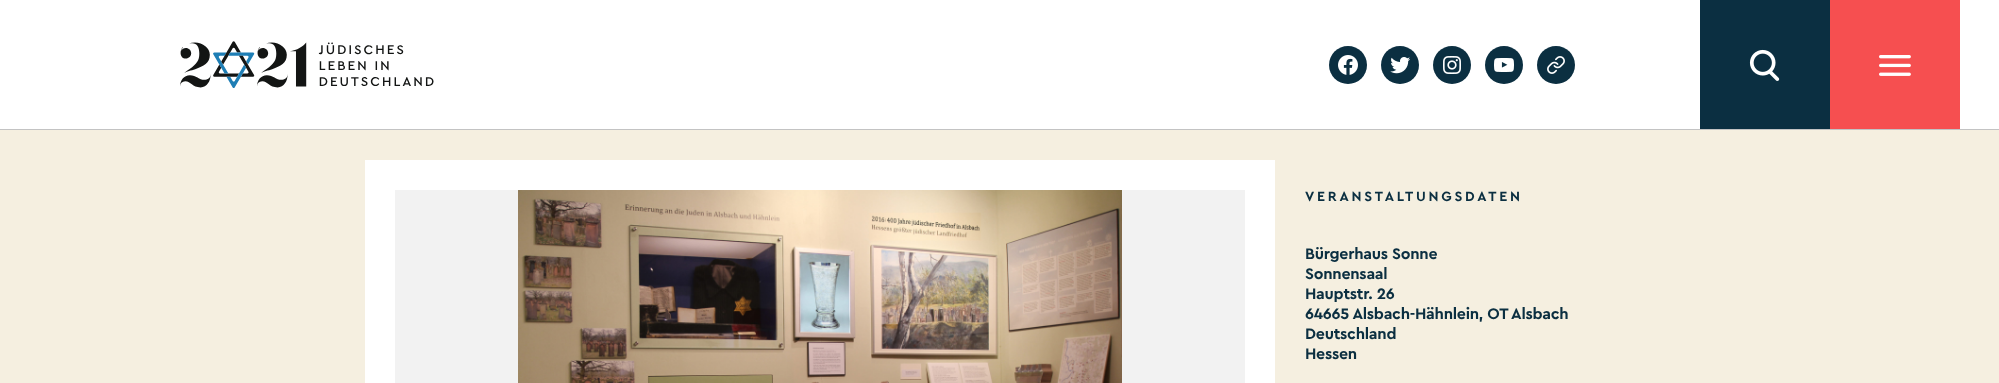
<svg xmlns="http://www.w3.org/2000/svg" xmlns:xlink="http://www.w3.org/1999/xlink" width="1999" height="383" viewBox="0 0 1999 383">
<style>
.cls-1{font:bold 14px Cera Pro;letter-spacing:2.75px;fill:#0b2f41}
.cls-2{font:bold 16px Cera Pro;letter-spacing:-0.25px;fill:#0b2f41}
</style>
<rect width="100%" height="100%" fill="#f5efe0"/>
<rect fill="#ffffff" x="0" y="0" width="1999" height="129"/>
<rect fill="#c3c3c3" x="0" y="129" width="1999" height="1"/>
<image xlink:href="image0.png" x="180" y="41" width="254" height="47"/>
<circle fill="#0b2f41" cx="1348" cy="65" r="19"/>
<image xlink:href="image1.png" x="1338" y="55" width="20" height="20"/>
<circle fill="#0b2f41" cx="1400" cy="65" r="19"/>
<image xlink:href="image2.png" x="1390" y="57" width="20" height="17"/>
<circle fill="#0b2f41" cx="1452" cy="65" r="19"/>
<image xlink:href="image3.png" x="1443" y="56" width="18" height="18"/>
<circle fill="#0b2f41" cx="1504" cy="65" r="19"/>
<image xlink:href="image4.png" x="1494" y="58" width="20" height="14"/>
<circle fill="#0b2f41" cx="1556" cy="65" r="19"/>
<image xlink:href="image5.png" x="1547" y="56" width="18" height="18"/>
<rect fill="#0b2f41" x="1700" y="0" width="130" height="129"/>
<image xlink:href="image6.png" x="1749" y="49" width="31" height="32"/>
<rect fill="#f64f50" x="1830" y="0" width="130" height="129"/>
<image xlink:href="image7.png" x="1879" y="55" width="32" height="21"/>
<rect fill="#ffffff" x="365" y="160" width="910" height="223"/>
<rect fill="#f2f2f2" x="395" y="190" width="850" height="193"/>
<image xlink:href="image8.png" x="518" y="190" width="604" height="193"/>
<text class="cls-1" x="1305" y="201">VERANSTALTUNGSDATEN</text>
<text class="cls-2"><tspan x="1305" y="259">Bürgerhaus Sonne</tspan><tspan x="1305" y="279">Sonnensaal</tspan><tspan x="1305" y="299">Hauptstr. 26</tspan><tspan x="1305" y="319">64665 Alsbach-Hähnlein, OT Alsbach</tspan><tspan x="1305" y="339">Deutschland</tspan><tspan x="1305" y="359">Hessen</tspan></text>
</svg>
